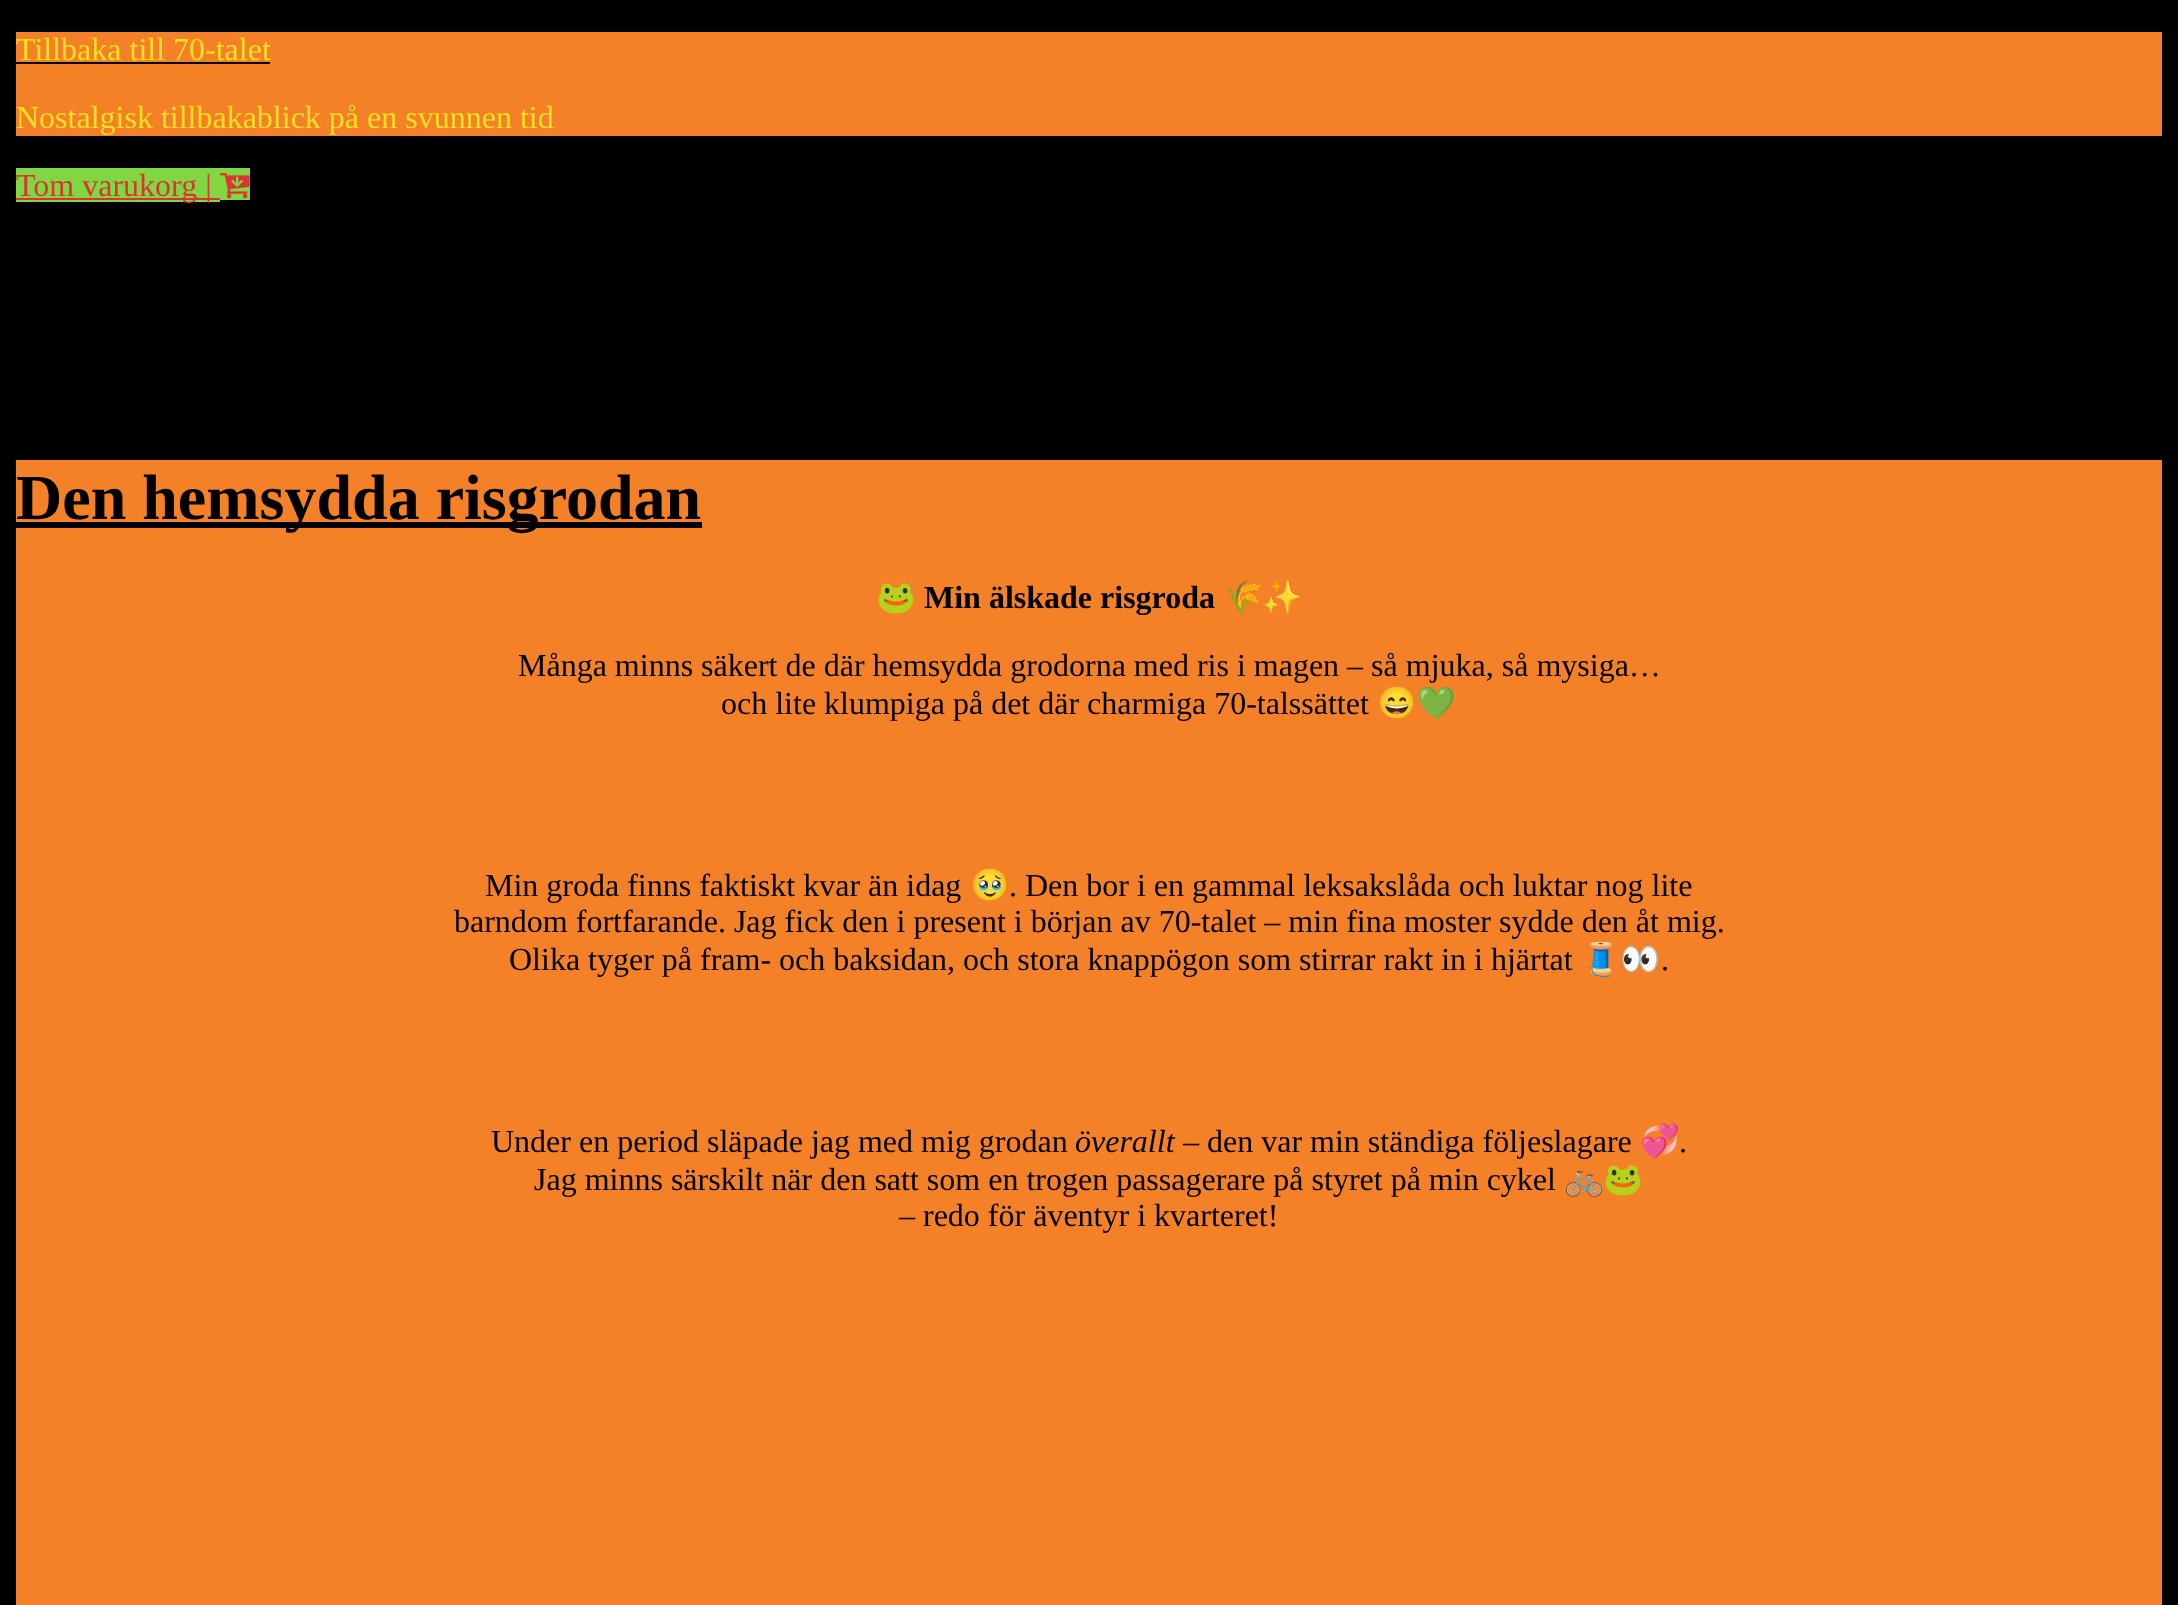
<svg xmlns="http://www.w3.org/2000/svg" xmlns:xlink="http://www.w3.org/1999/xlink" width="2178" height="1605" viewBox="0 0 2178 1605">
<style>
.cls-1{font:32px Liberation Serif;fill:#f9e022}
.cls-2{font:32px Liberation Serif;fill:#dd3333}
.cls-3{font:bold 64px Liberation Serif;fill:#000000}
.cls-4{font:32px Noto Color Emoji;fill:#000000}
.cls-5{font:bold 32px Liberation Serif;fill:#000000}
.cls-6{font:32px Liberation Serif;fill:#000000}
.cls-7{font:italic 32px Liberation Serif;fill:#000000}
</style>
<rect width="100%" height="100%" fill="#000000"/>
<rect fill="#f48027" x="16" y="32" width="2146" height="104"/>
<rect fill="#000000" x="16" y="62" width="254" height="2"/>
<rect fill="#81d742" x="16" y="168" width="204" height="34"/>
<rect fill="#81d742" x="220" y="168" width="30" height="32"/>
<rect fill="#dd3333" x="16" y="198" width="204" height="2"/>
<image xlink:href="image0.png" x="220" y="173" width="30" height="26"/>
<rect fill="#f48027" x="16" y="460" width="2146" height="1145"/>
<rect fill="#000000" x="16" y="522" width="686" height="6"/>
<text class="cls-1" x="16" y="60">Tillbaka till 70-talet</text>
<text class="cls-1" x="16" y="128">Nostalgisk tillbakablick på en svunnen tid</text>
<text class="cls-2" x="16" y="196">Tom varukorg |</text>
<text class="cls-3" x="16" y="519">Den hemsydda risgrodan</text>
<text class="cls-4" x="876" y="608">🐸</text>
<text class="cls-5" x="924" y="608">Min älskade risgroda</text>
<text class="cls-4" x="1223" y="608">🌾✨</text>
<text class="cls-6" x="518" y="676">Många minns säkert de där hemsydda grodorna med ris i magen – så mjuka, så mysiga…</text>
<text class="cls-6" x="721" y="714">och lite klumpiga på det där charmiga 70-talssättet</text>
<text class="cls-4" x="1377" y="714">😄💚</text>
<text class="cls-6" x="485" y="896">Min groda finns faktiskt kvar än idag</text>
<text class="cls-4" x="970" y="896">🥹</text>
<text class="cls-6" x="1009" y="896">. Den bor i en gammal leksakslåda och luktar nog lite</text>
<text class="cls-6" x="454" y="932">barndom fortfarande. Jag fick den i present i början av 70-talet – min fina moster sydde den åt mig.</text>
<text class="cls-6" x="509" y="970">Olika tyger på fram- och baksidan, och stora knappögon som stirrar rakt in i hjärtat</text>
<text class="cls-4" x="1581" y="970">🧵👀</text>
<text class="cls-6" x="1661" y="970">.</text>
<text class="cls-6" x="491" y="1152">Under en period släpade jag med mig grodan</text>
<text class="cls-7" x="1075" y="1152">överallt</text>
<text class="cls-6" x="1183" y="1152">– den var min ständiga följeslagare</text>
<text class="cls-4" x="1640" y="1152">💞</text>
<text class="cls-6" x="1679" y="1152">.</text>
<text class="cls-6" x="534" y="1190">Jag minns särskilt när den satt som en trogen passagerare på styret på min cykel</text>
<text class="cls-4" x="1564" y="1190">🚲🐸</text>
<text class="cls-6" x="899" y="1226">– redo för äventyr i kvarteret!</text>
</svg>
